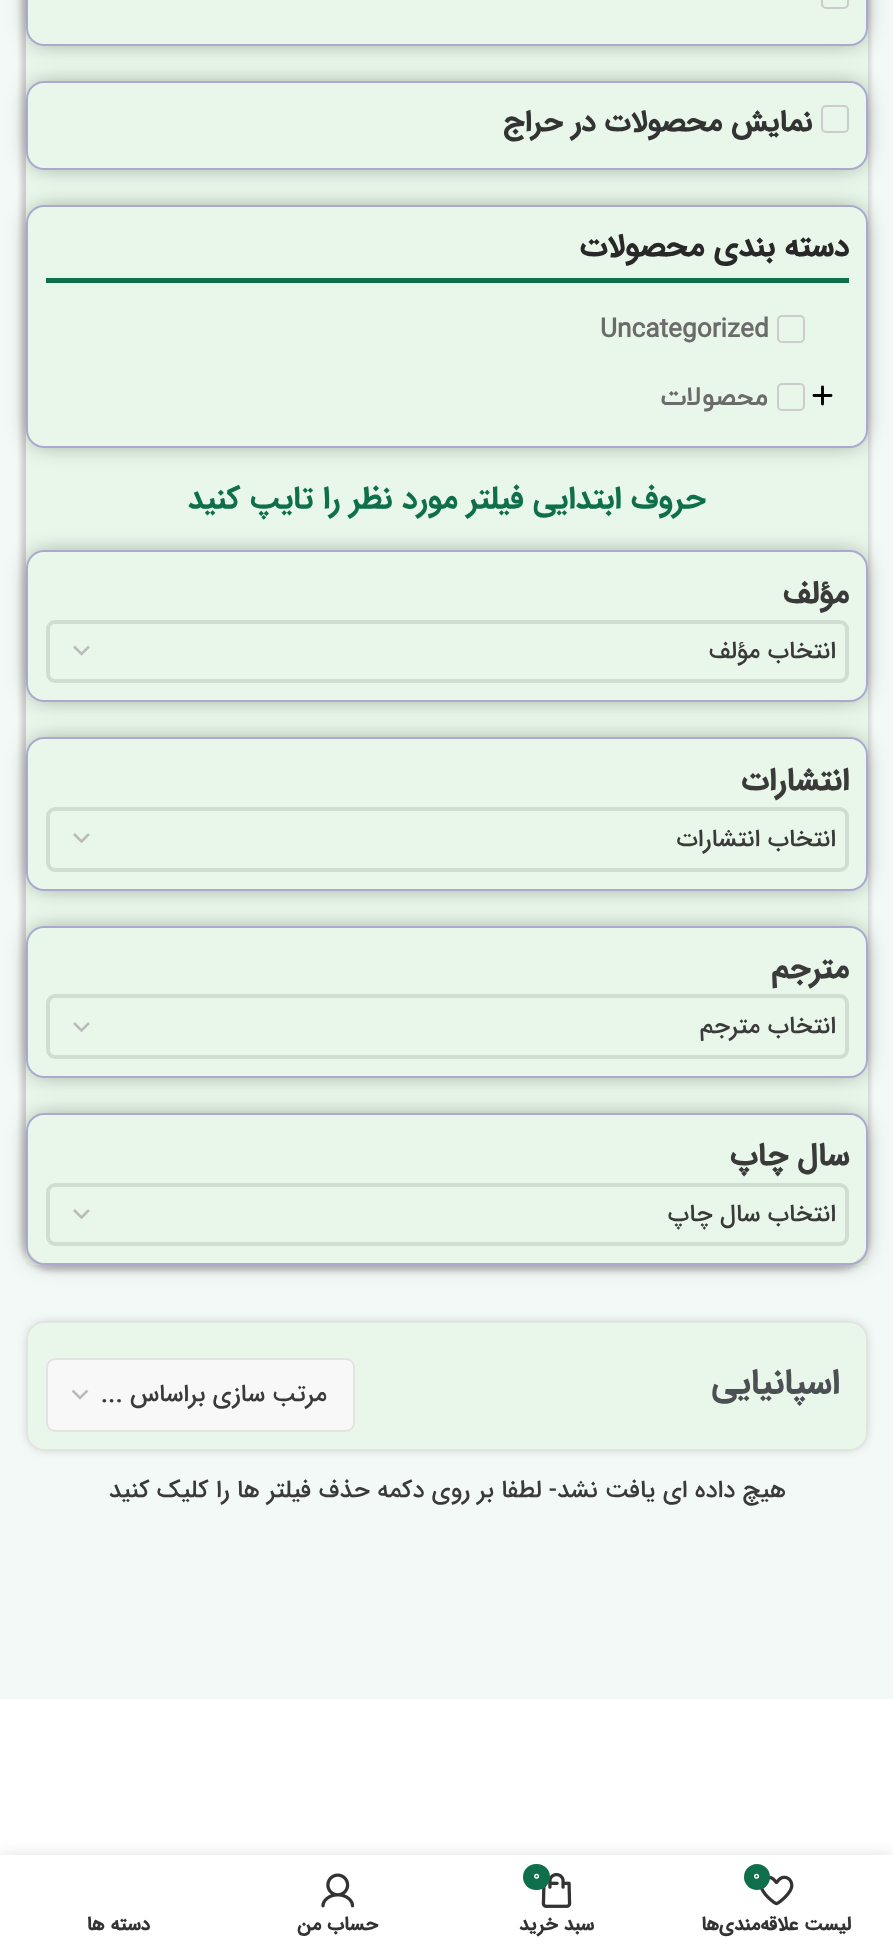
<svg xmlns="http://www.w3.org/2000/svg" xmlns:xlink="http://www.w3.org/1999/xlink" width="893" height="1950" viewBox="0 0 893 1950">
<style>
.cls-1{font:bold 29.75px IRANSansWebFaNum;direction:rtl;fill:#333333}
.cls-2{font:bold 31.5px IRANSansWebFaNum;direction:rtl;fill:#282828}
.cls-3{font:bold 26.25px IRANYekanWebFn;fill:#6b6b6b}
.cls-4{font:bold 26.25px IRANYekanWebFn;direction:rtl;fill:#6b6b6b}
.cls-5{font:bold 31.5px 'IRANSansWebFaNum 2';direction:rtl;fill:#0f6f4b}
.cls-6{font:bold 31.5px IRANSansWebFaNum;direction:rtl;fill:#3a3a3a}
.cls-7{font:500 24.5px IRANSansWebFaNum;direction:rtl;fill:#3a3a3a}
.cls-8{font:bold 35px 'IRANSansWebFaNum 2';direction:rtl;fill:#4c5055}
.cls-9{font:500 16px IRANSansWebFaNum;fill:#ffffff}
.cls-10{font:bold 19.25px IRANSansWebFaNum;direction:rtl;fill:#333333}
</style>
<defs>
<clipPath id="clip1"><path d="M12 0H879V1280H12ZM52-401H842C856.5-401 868-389.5 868-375V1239C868 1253.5 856.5 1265 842 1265H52C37.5 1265 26 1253.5 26 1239V-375C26-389.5 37.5-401 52-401Z" clip-rule="evenodd"/></clipPath>
<clipPath id="clip2"><path d="M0 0H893V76H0ZM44-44H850C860-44 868-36 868-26V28C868 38 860 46 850 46H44C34 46 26 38 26 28V-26C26-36 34-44 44-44Z" clip-rule="evenodd"/></clipPath>
<clipPath id="clip3"><path d="M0 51H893V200H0ZM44 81H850C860 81 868 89 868 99V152C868 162 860 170 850 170H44C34 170 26 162 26 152V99C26 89 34 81 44 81Z" clip-rule="evenodd"/></clipPath>
<clipPath id="clip4"><path d="M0 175H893V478H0ZM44 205H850C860 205 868 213 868 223V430C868 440 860 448 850 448H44C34 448 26 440 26 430V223C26 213 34 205 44 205Z" clip-rule="evenodd"/></clipPath>
<clipPath id="clip5"><path d="M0 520H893V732H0ZM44 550H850C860 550 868 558 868 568V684C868 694 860 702 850 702H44C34 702 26 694 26 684V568C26 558 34 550 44 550Z" clip-rule="evenodd"/></clipPath>
<clipPath id="clip6"><path d="M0 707H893V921H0ZM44 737H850C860 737 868 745 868 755V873C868 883 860 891 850 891H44C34 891 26 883 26 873V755C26 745 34 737 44 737Z" clip-rule="evenodd"/></clipPath>
<clipPath id="clip7"><path d="M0 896H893V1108H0ZM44 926H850C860 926 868 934 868 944V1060C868 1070 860 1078 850 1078H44C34 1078 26 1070 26 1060V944C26 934 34 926 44 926Z" clip-rule="evenodd"/></clipPath>
<clipPath id="clip8"><path d="M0 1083H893V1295H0ZM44 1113H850C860 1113 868 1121 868 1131V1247C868 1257 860 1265 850 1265H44C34 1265 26 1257 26 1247V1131C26 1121 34 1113 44 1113Z" clip-rule="evenodd"/></clipPath>
<clipPath id="clip9"><path d="M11 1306H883V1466H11ZM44 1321H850C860 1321 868 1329 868 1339V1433C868 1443 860 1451 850 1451H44C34 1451 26 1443 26 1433V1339C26 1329 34 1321 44 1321Z" clip-rule="evenodd"/></clipPath>
</defs>
<rect width="100%" height="100%" fill="#ffffff"/>
<rect fill="#f3f9f6" x="0" y="0" width="893" height="1699"/>
<g clip-path="url(#clip1)">
<rect fill="#cccccc" filter="blur(2.5px)" x="21" y="-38" width="849" height="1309" rx="30"/>
</g>
<rect fill="#e0f4e0" fill-opacity="0.58" x="26" y="0" width="842" height="1265"/>
<g clip-path="url(#clip2)">
<rect fill="#000000" fill-opacity="0.5" filter="blur(12px)" x="33" y="-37" width="828" height="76" rx="11"/>
</g>
<rect fill="none" stroke="#aba9ce" stroke-width="2" x="27" y="-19" width="840" height="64" rx="17"/>
<rect fill="none" stroke="#cccccc" stroke-width="2" x="822" y="-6" width="26" height="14" rx="4"/>
<g clip-path="url(#clip3)">
<rect fill="#000000" fill-opacity="0.5" filter="blur(12px)" x="33" y="88" width="828" height="75" rx="11"/>
</g>
<rect fill="none" stroke="#aba9ce" stroke-width="2" x="27" y="82" width="840" height="87" rx="17"/>
<rect fill="none" stroke="#cccccc" stroke-width="2" x="822" y="106" width="26" height="26" rx="4"/>
<g clip-path="url(#clip4)">
<rect fill="#000000" fill-opacity="0.5" filter="blur(12px)" x="33" y="212" width="828" height="229" rx="11"/>
</g>
<rect fill="none" stroke="#aba9ce" stroke-width="2" x="27" y="206" width="840" height="241" rx="17"/>
<rect fill="#0f6f4b" x="46" y="278" width="803" height="5"/>
<rect fill="none" stroke="#cccccc" stroke-width="2" x="778" y="316" width="26" height="26" rx="4"/>
<path fill="none" stroke="#000000" stroke-width="2.9" stroke-linecap="round" stroke-linejoin="round" d="M814 395.5H831M822.5 387V404"/>
<rect fill="none" stroke="#cccccc" stroke-width="2" x="778" y="384" width="26" height="26" rx="4"/>
<g clip-path="url(#clip5)">
<rect fill="#000000" fill-opacity="0.5" filter="blur(12px)" x="33" y="557" width="828" height="138" rx="11"/>
</g>
<rect fill="none" stroke="#aba9ce" stroke-width="2" x="27" y="551" width="840" height="150" rx="17"/>
<path fill="none" stroke="#bbbbbb" stroke-width="2.5" d="M74 646.5L81.5 654L89 646.5"/>
<rect fill="none" stroke="#d1ddd2" stroke-width="4" x="48" y="622" width="799" height="59" rx="7"/>
<g clip-path="url(#clip6)">
<rect fill="#000000" fill-opacity="0.5" filter="blur(12px)" x="33" y="744" width="828" height="140" rx="11"/>
</g>
<rect fill="none" stroke="#aba9ce" stroke-width="2" x="27" y="738" width="840" height="152" rx="17"/>
<path fill="none" stroke="#bbbbbb" stroke-width="2.5" d="M74 834L81.5 841.5L89 834"/>
<rect fill="none" stroke="#d1ddd2" stroke-width="4" x="48" y="809" width="799" height="61" rx="7"/>
<g clip-path="url(#clip7)">
<rect fill="#000000" fill-opacity="0.5" filter="blur(12px)" x="33" y="933" width="828" height="138" rx="11"/>
</g>
<rect fill="none" stroke="#aba9ce" stroke-width="2" x="27" y="927" width="840" height="150" rx="17"/>
<path fill="none" stroke="#bbbbbb" stroke-width="2.5" d="M74 1023L81.5 1030.5L89 1023"/>
<rect fill="none" stroke="#d1ddd2" stroke-width="4" x="48" y="996" width="799" height="61" rx="7"/>
<g clip-path="url(#clip8)">
<rect fill="#000000" fill-opacity="0.5" filter="blur(12px)" x="33" y="1120" width="828" height="138" rx="11"/>
</g>
<rect fill="none" stroke="#aba9ce" stroke-width="2" x="27" y="1114" width="840" height="150" rx="17"/>
<path fill="none" stroke="#bbbbbb" stroke-width="2.5" d="M74 1210L81.5 1217.5L89 1210"/>
<rect fill="none" stroke="#d1ddd2" stroke-width="4" x="48" y="1185" width="799" height="59" rx="7"/>
<g clip-path="url(#clip9)">
<rect fill="#000000" fill-opacity="0.5" filter="blur(7px)" x="33" y="1328" width="828" height="116" rx="11"/>
</g>
<rect fill="#e0f4e0" fill-opacity="0.58" stroke="#e3e3e3" stroke-width="2" x="27" y="1322" width="840" height="128" rx="17"/>
<rect fill="#f8f8f8" x="46" y="1358" width="309" height="74" rx="9"/>
<path fill="none" stroke="#bbbbbb" stroke-width="2.5" d="M72.5 1390.5L80 1398L87.5 1390.5"/>
<rect fill="none" stroke="#e3e3e3" stroke-width="2" x="47" y="1359" width="307" height="72" rx="8"/>
<rect fill="#000000" fill-opacity="0.12" filter="blur(8px)" x="0" y="1855" width="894" height="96"/>
<rect fill="#ffffff" x="0" y="1855" width="893" height="95"/>
<image xlink:href="image0.png" x="760" y="1875" width="34" height="31"/>
<circle fill="#0f6f4b" cx="757" cy="1877" r="13"/>
<image xlink:href="image1.png" x="541" y="1872" width="31" height="36"/>
<rect fill="#0f6f4b" x="523" y="1864" width="27" height="26" rx="13"/>
<image xlink:href="image2.png" x="321" y="1873" width="34" height="35"/>
<text class="cls-1" x="812" y="131">نمایش محصولات در حراج</text>
<text class="cls-2" x="849" y="256">دسته بندی محصولات</text>
<text class="cls-3" x="600" y="337">Uncategorized</text>
<text class="cls-4" x="768" y="405">محصولات</text>
<text class="cls-5" x="706" y="508">حروف ابتدایی فیلتر مورد نظر را تایپ کنید</text>
<text class="cls-6" x="849" y="603">مؤلف</text>
<text class="cls-7" x="836" y="658">انتخاب مؤلف</text>
<text class="cls-6" x="849" y="790">انتشارات</text>
<text class="cls-7" x="836" y="846">انتخاب انتشارات</text>
<text class="cls-6" x="849" y="978">مترجم</text>
<text class="cls-7" x="836" y="1033">انتخاب مترجم</text>
<text class="cls-6" x="849" y="1165">سال چاپ</text>
<text class="cls-7" x="836" y="1221">انتخاب سال چاپ</text>
<text class="cls-8" x="840" y="1393">اسپانیایی</text>
<text class="cls-7" x="327" y="1401">مرتب سازی براساس ...</text>
<text class="cls-7" x="786" y="1497">هیچ داده ای یافت نشد- لطفا بر روی دکمه حذف فیلتر ها را کلیک کنید</text>
<text class="cls-9" x="753" y="1880">0</text>
<text class="cls-10" x="851" y="1930">لیست علاقه‌مندی‌ها</text>
<text class="cls-9" x="533" y="1880">0</text>
<text class="cls-10" x="594" y="1930">سبد خرید</text>
<text class="cls-10" x="378" y="1930">حساب من</text>
<text class="cls-10" x="150" y="1930">دسته ها</text>
</svg>
